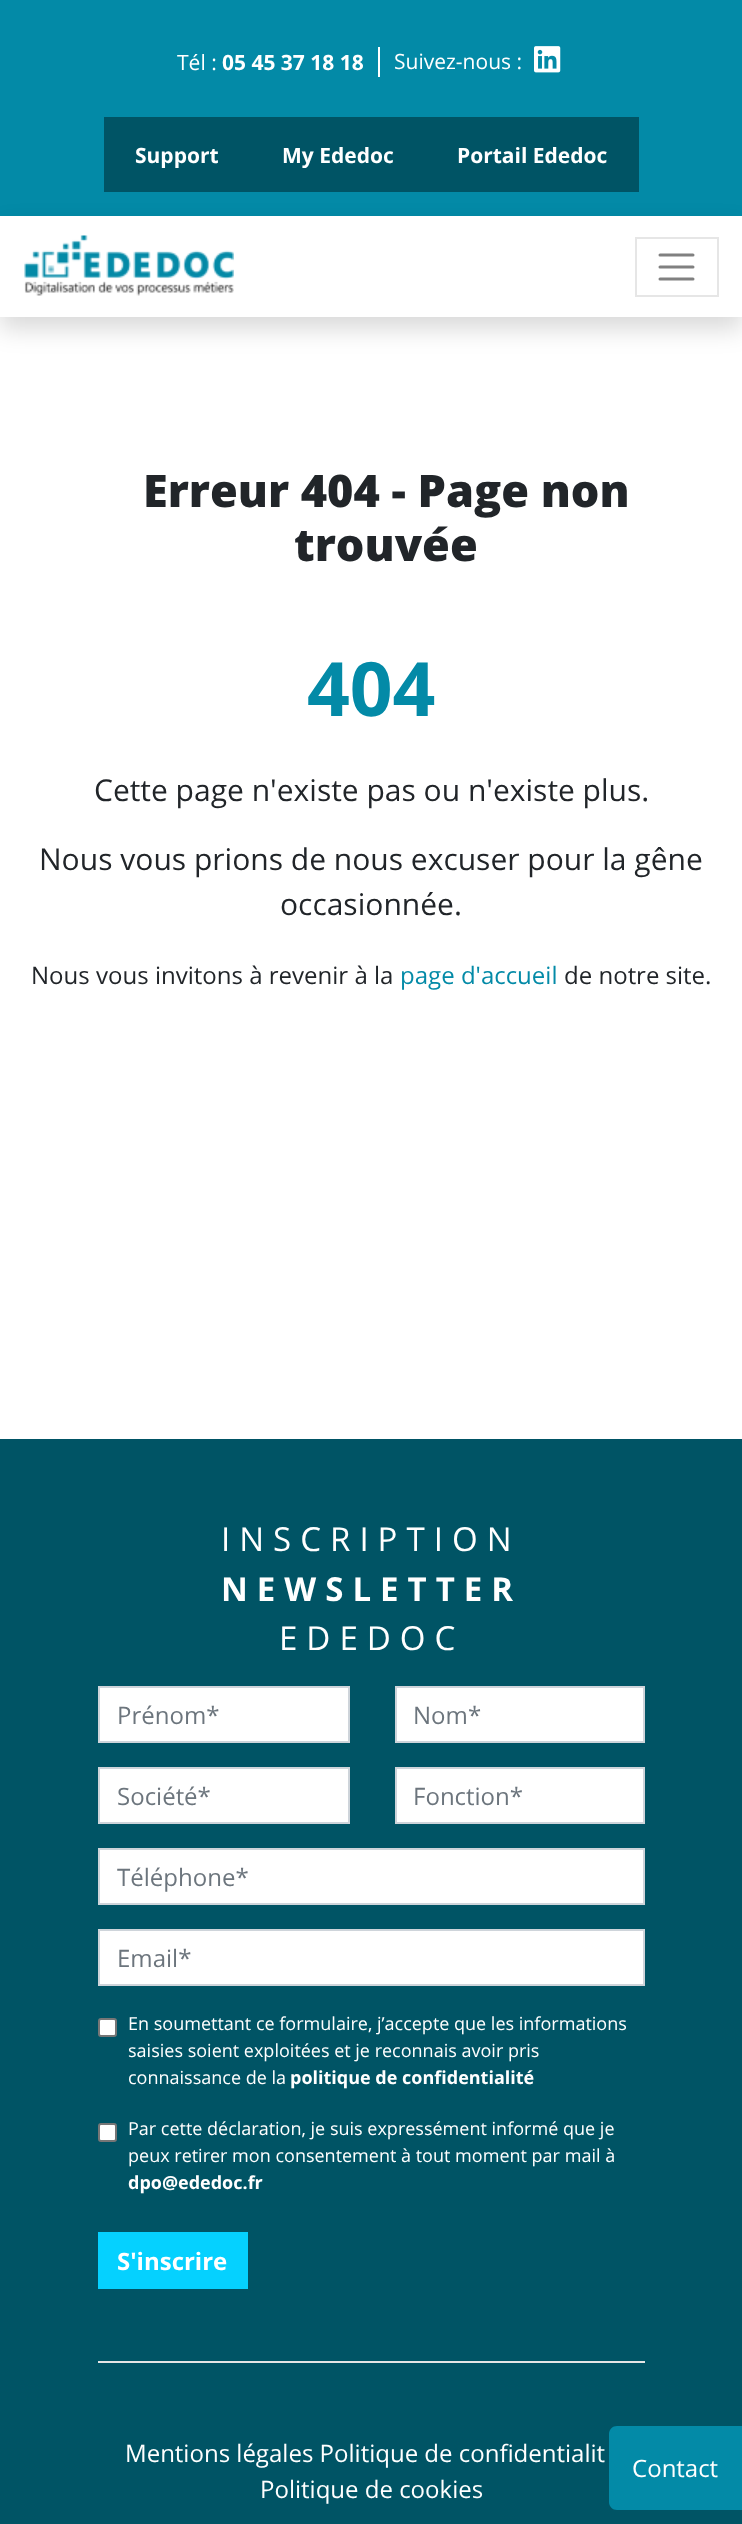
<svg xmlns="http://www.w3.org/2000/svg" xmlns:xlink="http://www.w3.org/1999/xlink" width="742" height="2524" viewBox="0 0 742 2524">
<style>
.cls-1{font:21px Open Sans;fill:#ffffff}
.cls-2{font:bold 21px Open Sans;fill:#ffffff}
.cls-3{font:800 45px Open Sans;fill:#212529}
.cls-4{font:bold 75px Open Sans;fill:#038aa7}
.cls-5{font:30px Open Sans;fill:#212529}
.cls-6{font:24px Open Sans;fill:#212529}
.cls-7{font:24px Open Sans;fill:#038aa7}
.cls-8{font:33px Open Sans;letter-spacing:9px;fill:#ffffff}
.cls-9{font:bold 33px Open Sans;letter-spacing:9px;fill:#ffffff}
.cls-10{font:24px Open Sans;fill:#6c757d}
.cls-11{font:18px Open Sans;fill:#ffffff}
.cls-12{font:bold 18px Open Sans;fill:#ffffff}
.cls-13{font:bold 24px Open Sans;fill:#ffffff}
.cls-14{font:24px Open Sans;fill:#ffffff}
</style>
<rect width="100%" height="100%" fill="#ffffff"/>
<rect fill="#038aa7" x="0" y="0" width="742" height="216"/>
<rect fill="#ffffff" x="378" y="47" width="2" height="30"/>
<image xlink:href="image0.png" x="534" y="46" width="27" height="27"/>
<rect fill="#000000" fill-opacity="0.15" filter="blur(12px)" x="0" y="228" width="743" height="101"/>
<rect fill="#005465" x="104" y="117" width="535" height="75"/>
<rect fill="#ffffff" x="0" y="216" width="742" height="101"/>
<image xlink:href="image1.png" x="24" y="235" width="210" height="61"/>
<rect fill="none" stroke="#e6e6e6" stroke-width="2" x="636" y="238" width="82" height="58"/>
<path fill="none" stroke="#808080" stroke-width="3" stroke-linecap="round" d="M660 255H693M660 267H693M660 279H693"/>
<rect fill="#005465" x="0" y="1439" width="742" height="1085"/>
<rect fill="#ffffff" stroke="#ced4da" stroke-width="2" x="99" y="1687" width="250" height="55"/>
<rect fill="#ffffff" stroke="#ced4da" stroke-width="2" x="396" y="1687" width="248" height="55"/>
<rect fill="#ffffff" stroke="#ced4da" stroke-width="2" x="99" y="1768" width="250" height="55"/>
<rect fill="#ffffff" stroke="#ced4da" stroke-width="2" x="396" y="1768" width="248" height="55"/>
<rect fill="#ffffff" stroke="#ced4da" stroke-width="2" x="99" y="1849" width="545" height="55"/>
<rect fill="#ffffff" stroke="#ced4da" stroke-width="2" x="99" y="1930" width="545" height="55"/>
<rect fill="#ffffff" stroke="#767676" stroke-width="2" x="99" y="2019" width="17" height="17" rx="2"/>
<rect fill="#ffffff" stroke="#767676" stroke-width="2" x="99" y="2124" width="17" height="17" rx="2"/>
<rect fill="#05d1ff" x="98" y="2232" width="150" height="57"/>
<rect fill="#e6e6e6" x="98" y="2361" width="547" height="2"/>
<path fill="#038aa7" d="M617 2426H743V2510H617C612.5 2510 609 2506.5 609 2502V2434C609 2429.5 612.5 2426 617 2426Z"/>
<text class="cls-1" x="177" y="70">Tél :</text>
<text class="cls-2" x="222" y="70">05 45 37 18 18</text>
<text class="cls-1" x="394" y="69">Suivez-nous :</text>
<text class="cls-2" x="135" y="163">Support</text>
<text class="cls-2" x="282" y="163">My Ededoc</text>
<text class="cls-2" x="457" y="163">Portail Ededoc</text>
<text class="cls-3" x="143" y="507">Erreur 404 - Page non</text>
<text class="cls-3" x="294" y="561">trouvée</text>
<text class="cls-4" x="307" y="716">404</text>
<text class="cls-5" x="94" y="801">Cette page n'existe pas ou n'existe plus.</text>
<text class="cls-5" x="39" y="870">Nous vous prions de nous excuser pour la gêne</text>
<text class="cls-5" x="280" y="915">occasionnée.</text>
<text class="cls-6" x="31" y="984">Nous vous invitons à revenir à la</text>
<text class="cls-7" x="400" y="984">page d'accueil</text>
<text class="cls-6" x="564" y="984">de notre site.</text>
<text class="cls-8" x="221" y="1551">INSCRIPTION</text>
<text class="cls-9" x="221" y="1601">NEWSLETTER</text>
<text class="cls-8" x="279" y="1650">EDEDOC</text>
<text class="cls-10" x="117" y="1724">Prénom*</text>
<text class="cls-10" x="413" y="1724">Nom*</text>
<text class="cls-10" x="117" y="1805">Société*</text>
<text class="cls-10" x="413" y="1805">Fonction*</text>
<text class="cls-10" x="117" y="1886">Téléphone*</text>
<text class="cls-10" x="117" y="1967">Email*</text>
<text class="cls-11"><tspan x="128" y="2030">En soumettant ce formulaire, j’accepte que les informations</tspan><tspan x="128" y="2057">saisies soient exploitées et je reconnais avoir pris</tspan><tspan x="128" y="2084">connaissance de la</tspan></text>
<text class="cls-12" x="290" y="2084">politique de confidentialité</text>
<text class="cls-11"><tspan x="128" y="2135">Par cette déclaration, je suis expressément informé que je</tspan><tspan x="128" y="2162">peux retirer mon consentement à tout moment par mail à</tspan></text>
<text class="cls-12" x="128" y="2189">dpo@ededoc.fr</text>
<text class="cls-13" x="117" y="2270">S'inscrire</text>
<text class="cls-14" x="125" y="2462">Mentions légales Politique de confidentialit</text>
<text class="cls-14" x="260" y="2498">Politique de cookies</text>
<text class="cls-14" x="632" y="2477">Contact</text>
</svg>
